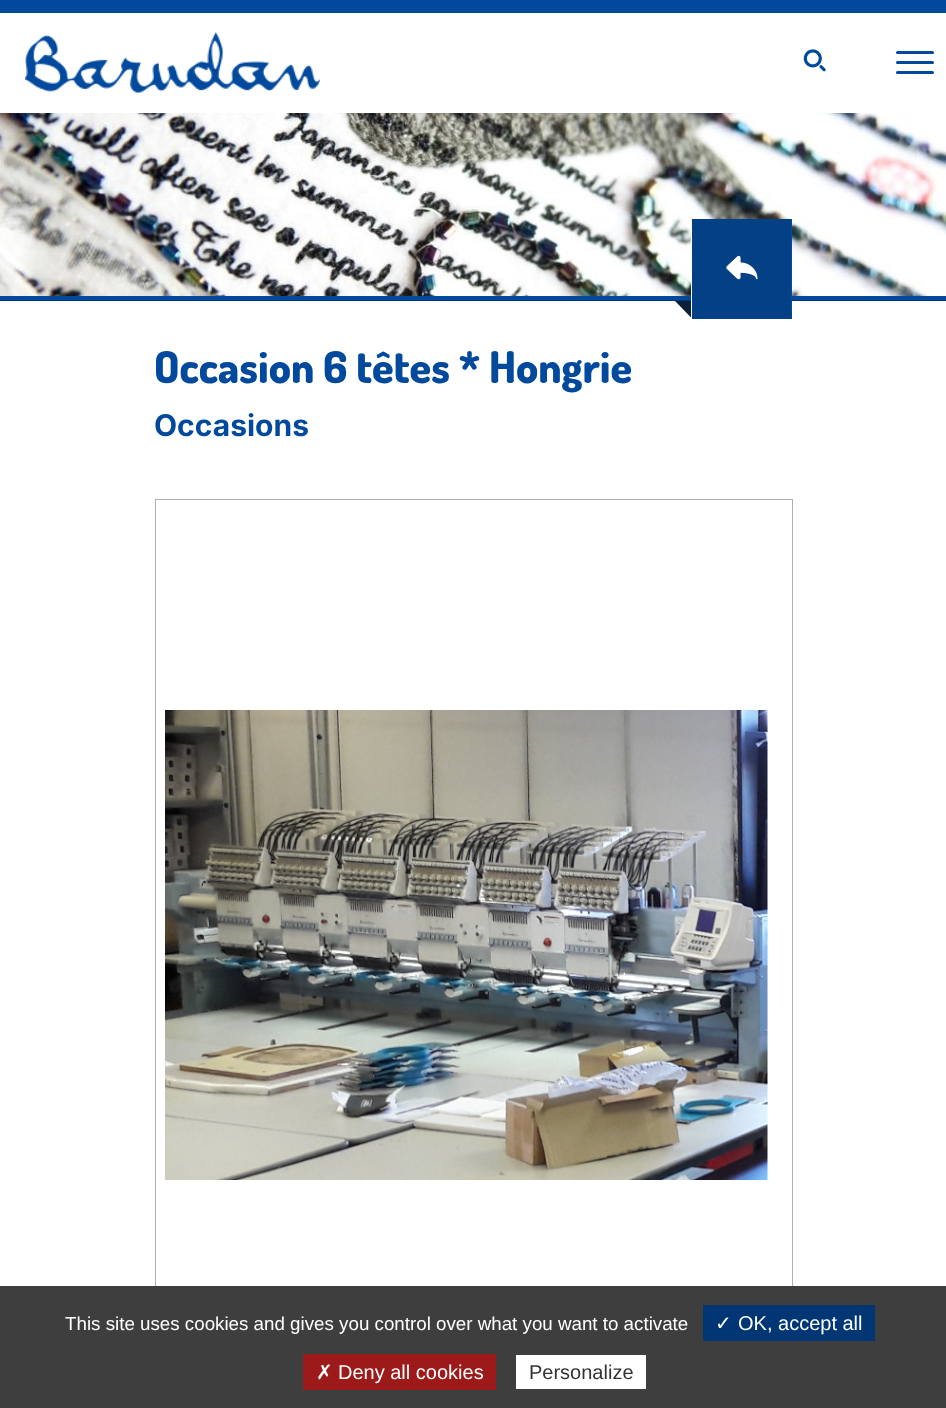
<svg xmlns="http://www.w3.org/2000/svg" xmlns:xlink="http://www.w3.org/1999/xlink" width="946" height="1408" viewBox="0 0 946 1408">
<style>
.cls-1{font:800 43.75px Dosis;fill:#01499d}
.cls-2{font:bold 30px Inter;fill:#01499d}
.cls-3{font:18.75px Liberation Sans;fill:#ffffff}
.cls-4{font:20px DejaVu Sans;fill:#ffffff}
.cls-5{font:20px Liberation Sans;fill:#ffffff}
.cls-6{font:20px Liberation Sans;fill:#333333}
</style>
<rect width="100%" height="100%" fill="#ffffff"/>
<rect fill="#01499d" x="0" y="0" width="946" height="13"/>
<image xlink:href="image0.png" x="25" y="32" width="295" height="61"/>
<image xlink:href="image1.png" x="803" y="49" width="23" height="23"/>
<rect fill="#01499d" x="896" y="51" width="38" height="3" rx="1.5"/>
<rect fill="#01499d" x="896" y="61" width="38" height="3" rx="1.5"/>
<rect fill="#01499d" x="896" y="71" width="38" height="3" rx="1.5"/>
<image xlink:href="image2.png" x="0" y="113" width="946" height="183"/>
<rect fill="#01499d" x="0" y="296" width="946" height="4"/>
<rect fill="#013674" x="0" y="300" width="946" height="1"/>
<rect fill="#01499d" x="791" y="219" width="1" height="100"/>
<path fill="#091f3a" d="M675 301H692.5V319Z"/>
<rect fill="#044086" x="692" y="219" width="99" height="100"/>
<rect fill="#ffffff" x="691" y="230" width="1" height="89"/>
<image xlink:href="image3.png" x="726" y="255" width="32" height="25"/>
<rect fill="none" stroke="#b0b0b0" x="155.5" y="499.5" width="637" height="890"/>
<image xlink:href="image4.png" x="165" y="710" width="603" height="470"/>
<rect fill="#3e3e3e" x="0" y="1286" width="946" height="122"/>
<rect fill="#013674" x="703" y="1305" width="172" height="36"/>
<rect fill="#9c1a1a" x="303" y="1354" width="193" height="36"/>
<rect fill="#ffffff" x="516" y="1355" width="130" height="34"/>
<text class="cls-1" x="154" y="383">Occasion 6 têtes * Hongrie</text>
<text class="cls-2" x="154" y="436">Occasions</text>
<text class="cls-3" x="65" y="1330">This site uses cookies and gives you control over what you want to activate</text>
<text class="cls-4" x="715" y="1330">✓</text>
<text class="cls-5" x="738" y="1330">OK, accept all</text>
<text class="cls-4" x="316" y="1379">✗</text>
<text class="cls-5" x="338" y="1379">Deny all cookies</text>
<text class="cls-6" x="529" y="1379">Personalize</text>
</svg>
